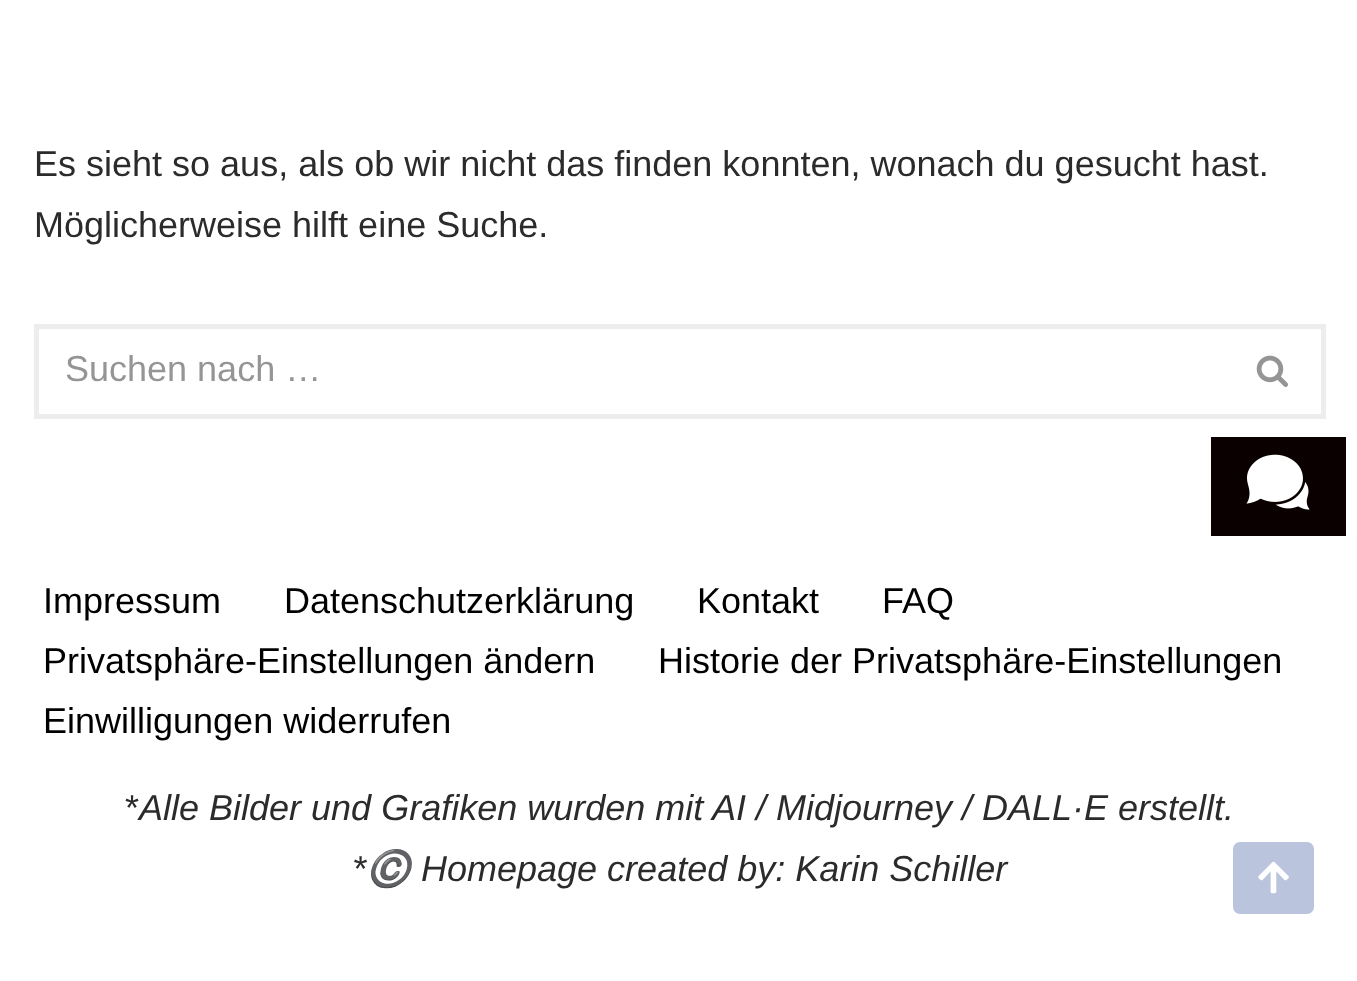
<svg xmlns="http://www.w3.org/2000/svg" xmlns:xlink="http://www.w3.org/1999/xlink" width="1357" height="981" viewBox="0 0 1357 981">
<style>
.cls-1{font:36px Liberation Sans;fill:#2b2b2b}
.cls-2{font:36px Liberation Sans;fill:#959595}
.cls-3{font:36px Liberation Sans;fill:#000000}
.cls-4{font:italic 36px Liberation Sans;fill:#2b2b2b}
.cls-5{font:italic 36px Noto Color Emoji;fill:#2b2b2b}
</style>
<rect width="100%" height="100%" fill="#ffffff"/>
<rect fill="#ededed" x="34" y="324" width="1291" height="5"/>
<rect fill="#ededed" x="34" y="414" width="1190" height="5"/>
<rect fill="#ededed" x="34" y="324" width="5" height="95"/>
<rect fill="#ededed" x="1321" y="324" width="5" height="95"/>
<rect fill="#ededed" x="1224" y="414" width="101" height="5"/>
<image xlink:href="image0.png" x="1256" y="355" width="32" height="32"/>
<rect fill="#bac4dd" x="1233" y="842" width="81" height="72" rx="7"/>
<image xlink:href="image1.png" x="1258" y="861" width="31" height="33"/>
<rect fill="#0a0000" x="1211" y="437" width="135" height="99"/>
<image xlink:href="image2.png" x="1246" y="454" width="64" height="56"/>
<text class="cls-1"><tspan x="34" y="176">Es sieht so aus, als ob wir nicht das finden konnten, wonach du gesucht hast.</tspan><tspan x="34" y="237">Möglicherweise hilft eine Suche.</tspan></text>
<text class="cls-2" x="65" y="381">Suchen nach …</text>
<text class="cls-3" x="43" y="613">Impressum</text>
<text class="cls-3" x="284" y="613">Datenschutzerklärung</text>
<text class="cls-3" x="697" y="613">Kontakt</text>
<text class="cls-3" x="882" y="613">FAQ</text>
<text class="cls-3" x="43" y="673">Privatsphäre-Einstellungen ändern</text>
<text class="cls-3" x="658" y="673">Historie der Privatsphäre-Einstellungen</text>
<text class="cls-3" x="43" y="733">Einwilligungen widerrufen</text>
<text class="cls-1" x="125" y="820">*</text>
<text class="cls-4" x="139" y="820">Alle Bilder und Grafiken wurden mit AI / Midjourney / DALL·E erstellt.</text>
<text class="cls-4" x="352" y="881">*</text>
<text class="cls-5" x="366" y="881">©️</text>
<text class="cls-4" x="421" y="881">Homepage created by: Karin Schiller</text>
</svg>
